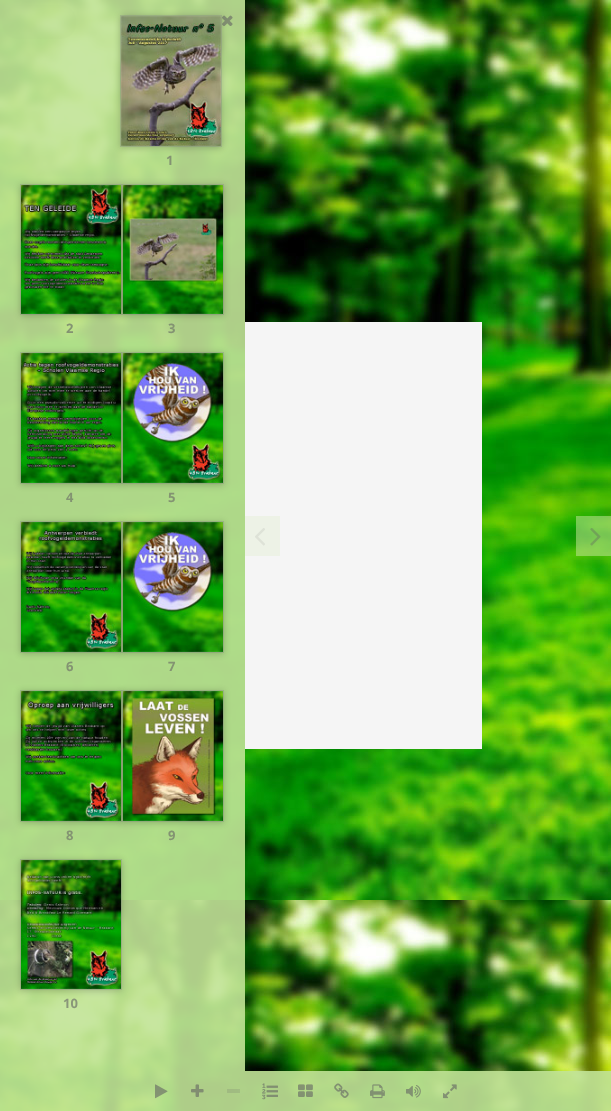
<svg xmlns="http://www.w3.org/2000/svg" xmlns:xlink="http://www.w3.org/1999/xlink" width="611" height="1111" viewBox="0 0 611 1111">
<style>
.cls-1{font:bold 13px Open Sans;fill:#839372}
.cls-2{font:bold 13px Open Sans;fill:#899679}
</style>
<rect width="100%" height="100%" fill="#ffffff"/>
<image xlink:href="image0.png" x="0" y="0" width="611" height="1111"/>
<rect fill="#000000" fill-opacity="0.1" x="2" y="5" width="74" height="34" rx="15"/>
<rect fill="#c1e397" fill-opacity="0.9" x="0" y="0" width="245" height="1071"/>
<rect fill="#000000" fill-opacity="0.2" filter="blur(3px)" x="120" y="16" width="102" height="132"/>
<image xlink:href="image1.png" x="222" y="15" width="11" height="11"/>
<rect fill="none" stroke="#868686" stroke-opacity="0.33" x="120.5" y="15.5" width="101" height="131"/>
<image xlink:href="image2.png" x="121" y="16" width="100" height="130"/>
<rect fill="#000000" fill-opacity="0.2" filter="blur(3px)" x="20" y="185" width="102" height="131"/>
<rect fill="none" stroke="#868686" stroke-opacity="0.33" x="20.5" y="184.5" width="101" height="130"/>
<image xlink:href="image3.png" x="21" y="185" width="100" height="129"/>
<rect fill="#000000" fill-opacity="0.2" filter="blur(3px)" x="122" y="185" width="102" height="131"/>
<rect fill="none" stroke="#868686" stroke-opacity="0.33" x="122.5" y="184.5" width="101" height="130"/>
<image xlink:href="image4.png" x="123" y="185" width="100" height="129"/>
<rect fill="#000000" fill-opacity="0.2" filter="blur(3px)" x="20" y="353" width="102" height="132"/>
<rect fill="none" stroke="#868686" stroke-opacity="0.33" x="20.5" y="352.5" width="101" height="131"/>
<image xlink:href="image5.png" x="21" y="353" width="100" height="130"/>
<rect fill="#000000" fill-opacity="0.2" filter="blur(3px)" x="122" y="353" width="102" height="132"/>
<rect fill="none" stroke="#868686" stroke-opacity="0.33" x="122.5" y="352.5" width="101" height="131"/>
<image xlink:href="image6.png" x="123" y="353" width="100" height="130"/>
<rect fill="#000000" fill-opacity="0.2" filter="blur(3px)" x="20" y="522" width="102" height="132"/>
<rect fill="none" stroke="#868686" stroke-opacity="0.33" x="20.5" y="521.5" width="101" height="131"/>
<image xlink:href="image7.png" x="21" y="522" width="100" height="130"/>
<rect fill="#000000" fill-opacity="0.2" filter="blur(3px)" x="122" y="522" width="102" height="132"/>
<rect fill="none" stroke="#868686" stroke-opacity="0.33" x="122.5" y="521.5" width="101" height="131"/>
<image xlink:href="image8.png" x="123" y="522" width="100" height="130"/>
<rect fill="#000000" fill-opacity="0.2" filter="blur(3px)" x="20" y="691" width="102" height="132"/>
<rect fill="none" stroke="#868686" stroke-opacity="0.33" x="20.5" y="690.5" width="101" height="131"/>
<image xlink:href="image9.png" x="21" y="691" width="100" height="130"/>
<rect fill="#000000" fill-opacity="0.2" filter="blur(3px)" x="122" y="691" width="102" height="132"/>
<rect fill="none" stroke="#868686" stroke-opacity="0.33" x="122.5" y="690.5" width="101" height="131"/>
<image xlink:href="image10.png" x="123" y="691" width="100" height="130"/>
<rect fill="#000000" fill-opacity="0.2" filter="blur(3px)" x="20" y="860" width="102" height="131"/>
<rect fill="none" stroke="#868686" stroke-opacity="0.33" x="20.5" y="859.5" width="101" height="130"/>
<image xlink:href="image11.png" x="21" y="860" width="100" height="129"/>
<rect fill="#f5f5f5" x="245" y="322" width="237" height="427"/>
<rect fill="#edf2e6" x="245" y="516" width="35" height="40"/>
<image xlink:href="image12.png" x="255" y="528" width="10" height="18"/>
<rect fill="#c1e397" fill-opacity="0.54" x="576" y="516" width="35" height="40"/>
<image xlink:href="image13.png" x="590" y="528" width="11" height="18"/>
<rect fill="#c1e397" fill-opacity="0.9" x="0" y="1071" width="611" height="40"/>
<image xlink:href="image14.png" x="155" y="1084" width="13" height="15"/>
<image xlink:href="image15.png" x="191" y="1084" width="13" height="13"/>
<rect fill="#626262" fill-opacity="0.18" x="227" y="1089" width="13" height="4"/>
<image xlink:href="image16.png" x="262" y="1083" width="16" height="17"/>
<image xlink:href="image17.png" x="298" y="1084" width="15" height="13"/>
<image xlink:href="image18.png" x="334" y="1083" width="15" height="15"/>
<image xlink:href="image19.png" x="370" y="1084" width="15" height="15"/>
<image xlink:href="image20.png" x="406" y="1085" width="15" height="13"/>
<image xlink:href="image21.png" x="443" y="1084" width="14" height="15"/>
<text class="cls-1" x="166" y="165">1</text>
<text class="cls-1" x="66" y="333">2</text>
<text class="cls-1" x="168" y="333">3</text>
<text class="cls-1" x="66" y="502">4</text>
<text class="cls-1" x="168" y="502">5</text>
<text class="cls-1" x="66" y="671">6</text>
<text class="cls-1" x="168" y="671">7</text>
<text class="cls-1" x="66" y="840">8</text>
<text class="cls-1" x="168" y="840">9</text>
<text class="cls-2" x="63" y="1008">10</text>
</svg>
